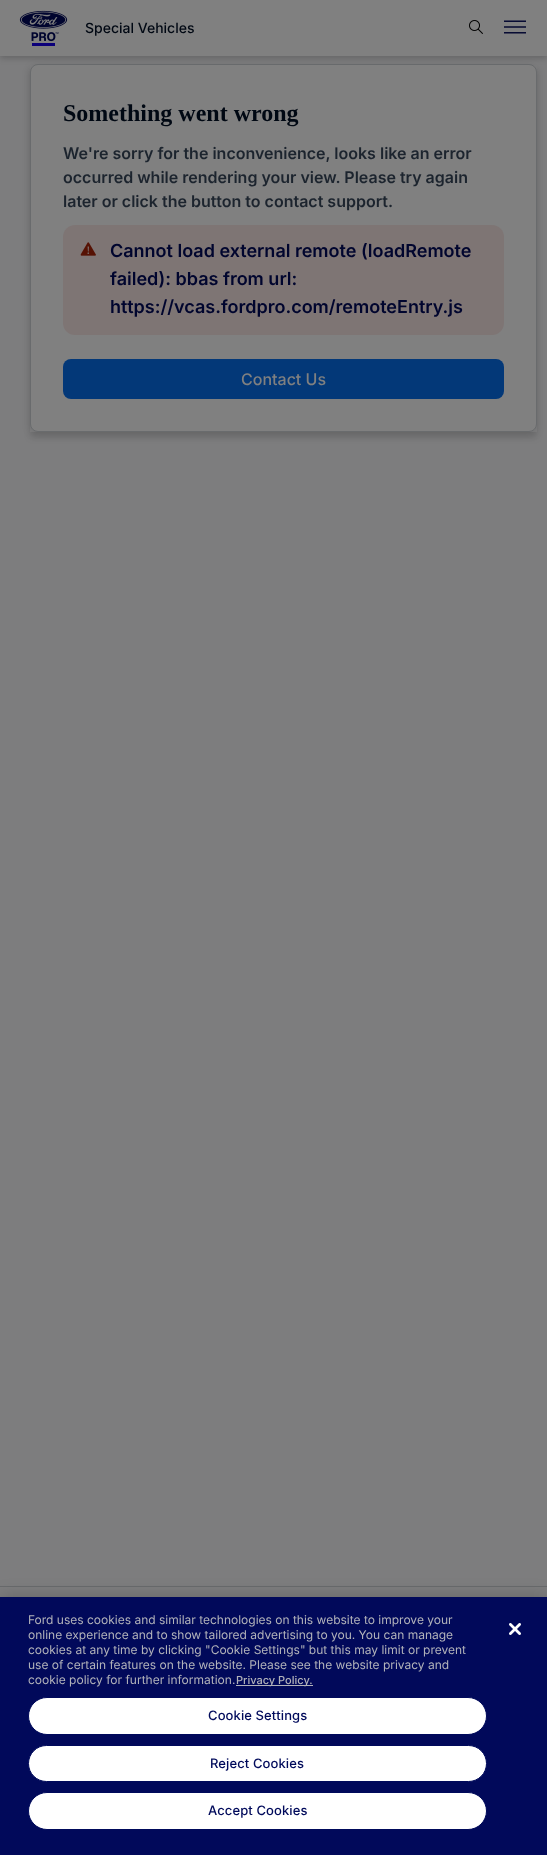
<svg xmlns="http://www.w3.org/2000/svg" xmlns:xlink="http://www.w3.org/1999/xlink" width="547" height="1855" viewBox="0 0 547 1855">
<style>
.cls-1{font:500 14px Inter;fill:#000813}
.cls-2{font:bold 24px Liberation Serif;fill:#000813}
.cls-3{font:600 16px Inter;fill:#1c242e}
.cls-4{font:600 18px Inter;fill:#00052e}
.cls-5{font:500 16px Inter;fill:#808080}
.cls-6{font:12px Inter;fill:#b2b3ba}
.cls-7{font:500 11px Inter;fill:#b2b3ba}
.cls-8{font:500 13px Inter;letter-spacing:0.1px;fill:#000a5b}
</style>
<defs>
<clipPath id="clip1"><path d="M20 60H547V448H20ZM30 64H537V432H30Z" clip-rule="evenodd"/></clipPath>
</defs>
<rect width="100%" height="100%" fill="#7d7d7e"/>
<g clip-path="url(#clip1)">
<rect fill="#000000" fill-opacity="0.1" filter="blur(3px)" x="30" y="70" width="507" height="368"/>
</g>
<rect fill="#000000" fill-opacity="0.1" filter="blur(4px)" x="30" y="66" width="507" height="368" rx="8"/>
<rect fill="#808080" stroke="#696b6d" x="30.5" y="64.5" width="506" height="367" rx="7.5"/>
<rect fill="#000000" fill-opacity="0.2" filter="blur(3px)" x="0" y="2" width="547" height="56"/>
<rect fill="#808080" x="0" y="0" width="547" height="56"/>
<image xlink:href="image0.png" x="19" y="10" width="49" height="36"/>
<image xlink:href="image1.png" x="469" y="20" width="14" height="14"/>
<image xlink:href="image2.png" x="504" y="20" width="22" height="14"/>
<rect fill="#7e7574" x="63" y="225" width="441" height="110" rx="12"/>
<image xlink:href="image3.png" x="80" y="242" width="16" height="14"/>
<rect fill="#033878" x="63" y="359" width="441" height="40" rx="8"/>
<rect fill="#696b6d" x="0" y="1586" width="547" height="1"/>
<rect fill="#000000" fill-opacity="0.2" filter="blur(9px)" x="0" y="1597" width="547" height="258"/>
<rect fill="#01095a" x="0" y="1597" width="547" height="258"/>
<rect fill="#b2b3ba" x="236" y="1685" width="77" height="1"/>
<rect fill="#ffffff" stroke="#000a5b" x="28.5" y="1697.5" width="458" height="37" rx="18.5"/>
<rect fill="#ffffff" stroke="#000a5b" x="28.5" y="1745.5" width="458" height="36" rx="18"/>
<rect fill="#ffffff" stroke="#000a5b" x="28.5" y="1792.5" width="458" height="37" rx="18.5"/>
<image xlink:href="image4.png" x="509" y="1623" width="12" height="12"/>
<text class="cls-1" x="85" y="33">Special Vehicles</text>
<text class="cls-2" x="63" y="121">Something went wrong</text>
<text class="cls-3"><tspan x="63" y="159">We're sorry for the inconvenience, looks like an error</tspan><tspan x="63" y="183">occurred while rendering your view. Please try again</tspan><tspan x="63" y="207">later or click the button to contact support.</tspan></text>
<text class="cls-4"><tspan x="110" y="257">Cannot load external remote (loadRemote</tspan><tspan x="110" y="285">failed): bbas from url:</tspan><tspan x="110" y="313">https://vcas.fordpro.com/remoteEntry.js</tspan></text>
<text class="cls-5" x="241" y="385">Contact Us</text>
<text class="cls-6"><tspan x="28" y="1624">Ford uses cookies and similar technologies on this website to improve your</tspan><tspan x="28" y="1639">online experience and to show tailored advertising to you. You can manage</tspan><tspan x="28" y="1654">cookies at any time by clicking "Cookie Settings" but this may limit or prevent</tspan><tspan x="28" y="1669">use of certain features on the website. Please see the website privacy and</tspan><tspan x="28" y="1684">cookie policy for further information.</tspan></text>
<text class="cls-7" x="236" y="1684">Privacy Policy.</text>
<text class="cls-8" x="208" y="1720">Cookie Settings</text>
<text class="cls-8" x="210" y="1768">Reject Cookies</text>
<text class="cls-8" x="208" y="1815">Accept Cookies</text>
</svg>
